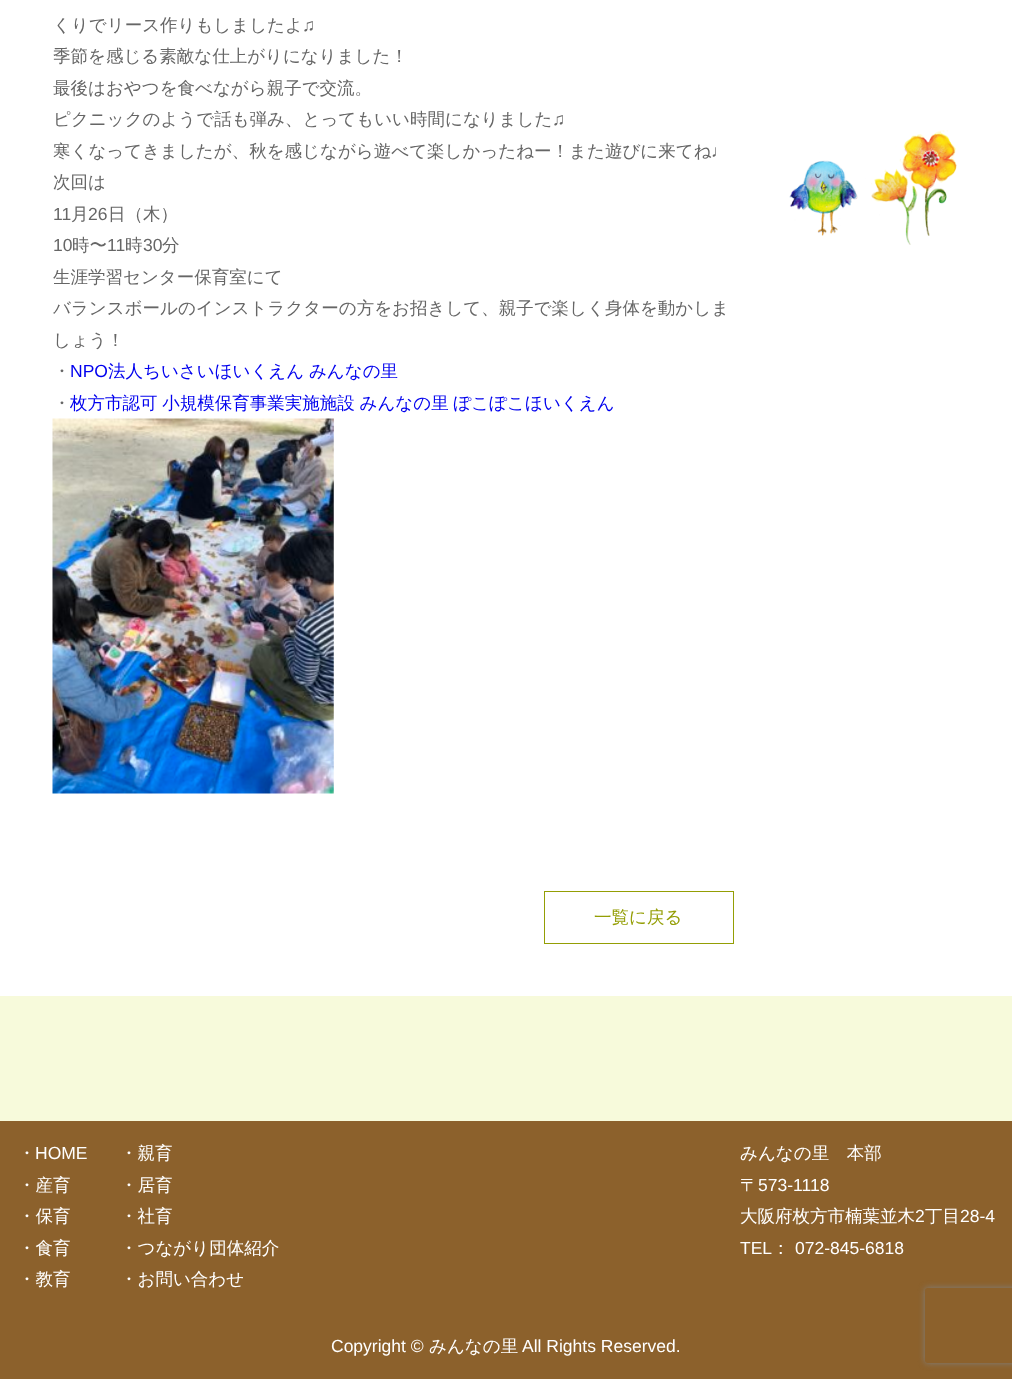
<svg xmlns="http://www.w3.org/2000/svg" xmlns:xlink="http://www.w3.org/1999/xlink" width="1012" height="1379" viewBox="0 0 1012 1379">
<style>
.cls-1{font:500 17.5px WenQuanYi Zen Hei;fill:#666666}
.cls-2{font:17.5px Liberation Sans;fill:#666666}
.cls-3{font:17.5px Liberation Sans;fill:#0000ee}
.cls-4{font:500 17.5px WenQuanYi Zen Hei;fill:#0000ee}
.cls-5{font:500 17.5px WenQuanYi Zen Hei;fill:#949e05}
.cls-6{font:500 17.5px WenQuanYi Zen Hei;fill:#ffffff}
.cls-7{font:17.5px Liberation Sans;fill:#ffffff}
</style>
<defs>
<clipPath id="clip1"><path d="M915 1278H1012V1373H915ZM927.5 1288H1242.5C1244 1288 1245 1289 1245 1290.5V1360.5C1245 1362 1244 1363 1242.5 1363H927.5C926 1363 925 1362 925 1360.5V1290.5C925 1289 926 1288 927.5 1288Z" clip-rule="evenodd"/></clipPath>
</defs>
<rect width="100%" height="100%" fill="#f7fadb"/>
<rect fill="#ffffff" x="0" y="0" width="1012" height="996"/>
<image xlink:href="image0.png" x="52" y="418" width="282" height="376"/>
<rect fill="none" stroke="#949e05" x="544.5" y="891.5" width="189" height="52"/>
<image xlink:href="image1.png" x="789" y="130" width="168" height="115"/>
<rect fill="#8c612c" x="0" y="1121" width="1012" height="258"/>
<g clip-path="url(#clip1)">
<rect fill="#808080" filter="blur(3px)" x="925" y="1288" width="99" height="75" rx="2.5"/>
</g>
<text class="cls-1" x="53" y="31">くりでリース作りもしましたよ</text>
<text class="cls-2" x="302" y="31">♫</text>
<text class="cls-1"><tspan x="53" y="62">季節を感じる素敵な仕上がりになりました！</tspan><tspan x="53" y="94">最後はおやつを食べながら親子で交流。</tspan><tspan x="53" y="125">ピクニックのようで話も弾み、とってもいい時間になりました</tspan></text>
<text class="cls-2" x="552" y="125">♫</text>
<text class="cls-1" x="53" y="157">寒くなってきましたが、秋を感じながら遊べて楽しかったねー！また遊びに来てね</text>
<text class="cls-2" x="711" y="157">♩</text>
<text class="cls-1" x="53" y="188">次回は</text>
<text class="cls-2" x="53" y="220">11</text>
<text class="cls-1" x="71" y="220">月</text>
<text class="cls-2" x="88" y="220">26</text>
<text class="cls-1" x="108" y="220">日（木）</text>
<text class="cls-2" x="53" y="251">10</text>
<text class="cls-1" x="72" y="251">時〜</text>
<text class="cls-2" x="107" y="251">11</text>
<text class="cls-1" x="125" y="251">時</text>
<text class="cls-2" x="143" y="251">30</text>
<text class="cls-1" x="162" y="251">分</text>
<text class="cls-1"><tspan x="53" y="283">生涯学習センター保育室にて</tspan><tspan x="53" y="314">バランスボールのインストラクターの方をお招きして、親子で楽しく身体を動かしま</tspan><tspan x="53" y="346">しょう！</tspan><tspan x="53" y="377">・</tspan></text>
<text class="cls-3" x="70" y="377">NPO</text>
<text class="cls-4" x="108" y="377" word-spacing="-0.5">法人ちいさいほいくえん みんなの里</text>
<text class="cls-1" x="53" y="409">・</text>
<text class="cls-4" x="70" y="409" word-spacing="-0.5">枚方市認可 小規模保育事業実施施設 みんなの里 ぽこぽこほいくえん</text>
<text class="cls-5" x="594" y="923">一覧に戻る</text>
<text class="cls-6" x="18" y="1159">・</text>
<text class="cls-7" x="35" y="1159">HOME</text>
<text class="cls-6" x="120" y="1159">・親育</text>
<text class="cls-6" x="18" y="1191">・産育</text>
<text class="cls-6" x="120" y="1191">・居育</text>
<text class="cls-6" x="18" y="1222">・保育</text>
<text class="cls-6" x="120" y="1222">・社育</text>
<text class="cls-6" x="18" y="1254">・食育</text>
<text class="cls-6" x="120" y="1254">・つながり団体紹介</text>
<text class="cls-6" x="18" y="1285">・教育</text>
<text class="cls-6" x="120" y="1285">・お問い合わせ</text>
<text class="cls-6"><tspan x="740" y="1159">みんなの里　本部</tspan><tspan x="740" y="1191">〒</tspan></text>
<text class="cls-7" x="758" y="1191">573-1118</text>
<text class="cls-6" x="740" y="1222">大阪府枚方市楠葉並木</text>
<text class="cls-7" x="915" y="1222">2</text>
<text class="cls-6" x="925" y="1222">丁目</text>
<text class="cls-7" x="960" y="1222">28-4</text>
<text class="cls-7" x="740" y="1254">TEL</text>
<text class="cls-6" x="772" y="1254">：</text>
<text class="cls-7" x="795" y="1254">072-845-6818</text>
<text class="cls-7" x="331" y="1352">Copyright ©</text>
<text class="cls-6" x="429" y="1352">みんなの里</text>
<text class="cls-7" x="522" y="1352">All Rights Reserved.</text>
</svg>
